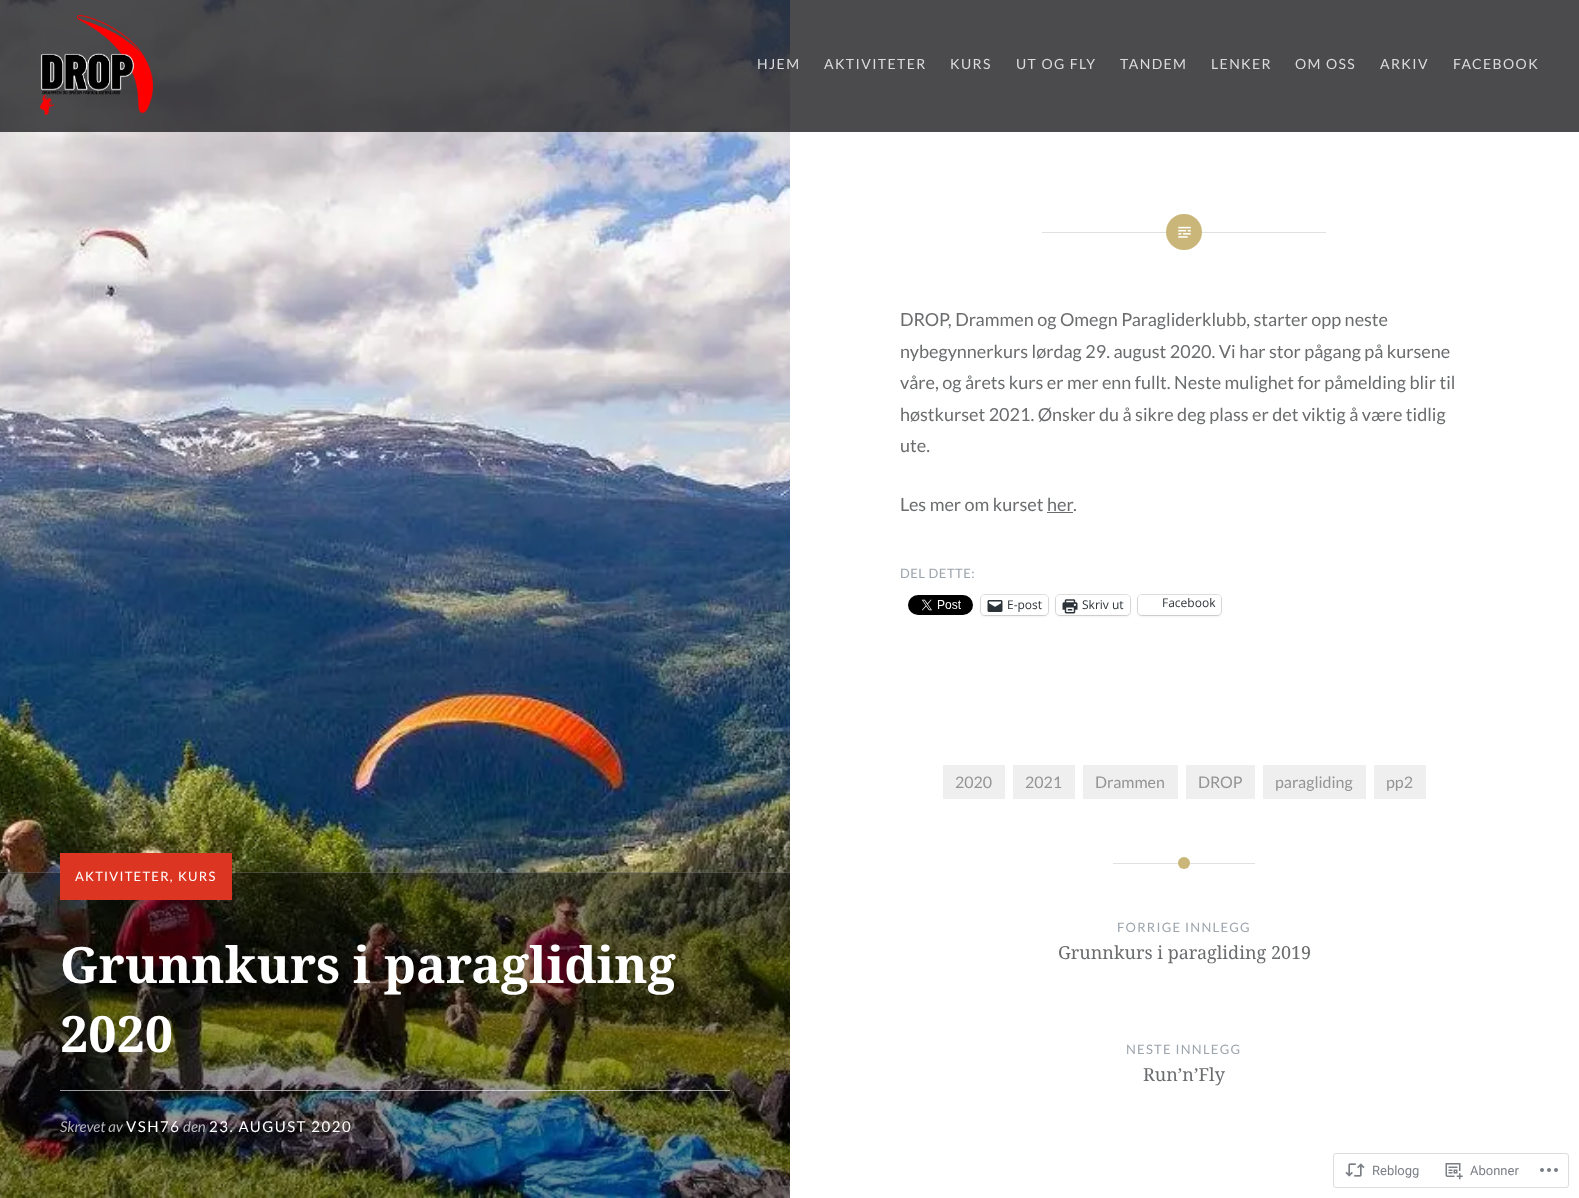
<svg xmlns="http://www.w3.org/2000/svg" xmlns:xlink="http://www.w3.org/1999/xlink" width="1579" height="1198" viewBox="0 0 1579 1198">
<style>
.cls-1{font:14px Lato;letter-spacing:1.4px;fill:#dadcdc}
.cls-2{font:18px Lato;fill:#6a6c6e}
.cls-3{font:13px Lato;letter-spacing:0.5px;fill:#9da5ad}
.cls-4{font:12px Open Sans;fill:#2c3338}
.cls-5{font:16px Lato;fill:#949494}
.cls-6{font:13px Lato;letter-spacing:1.25px;fill:#ffffff}
.cls-7{font:italic 13px Lato;letter-spacing:1.25px;fill:#ffffff}
.cls-8{font:bold 50px Noto Serif;fill:#ffffff}
.cls-9{font:italic 15px Lato;fill:#b5b5b9}
.cls-10{font:15px Lato;letter-spacing:1.5px;fill:#ffffff}
.cls-11{font:italic 15px Lato;fill:#bbbabd}
.cls-12{font:13px Lato;letter-spacing:1.25px;fill:#9da5ad}
.cls-13{font:18px Noto Serif;fill:#6a6c6e}
.cls-14{font:13px Roboto;fill:#7b7f85}
</style>
<rect width="100%" height="100%" fill="#ffffff"/>
<image xlink:href="image1.png" x="0" y="0" width="790" height="1198"/>
<rect fill="#1e1e20" fill-opacity="0.8" x="0" y="0" width="1579" height="132"/>
<image xlink:href="image0.png" x="40" y="15" width="113" height="100"/>
<rect fill="#e0e0e0" x="1042" y="232" width="284" height="1"/>
<circle fill="#c9b678" cx="1184" cy="232" r="18"/>
<image xlink:href="image2.png" x="1178" y="226" width="13" height="12"/>
<rect fill="#6a6c6e" x="1047" y="512" width="26" height="1"/>
<image xlink:href="image3.png" x="908" y="595" width="65" height="20"/>
<rect fill="none" stroke="#e0e0e0" x="980.5" y="594.5" width="68" height="21" rx="4.5"/>
<rect fill="#000000" fill-opacity="0.12" filter="blur(1px)" x="981" y="596" width="67" height="20" rx="4"/>
<rect fill="#ffffff" x="981" y="595" width="67" height="20" rx="4"/>
<image xlink:href="image4.png" x="987" y="600" width="16" height="12"/>
<rect fill="none" stroke="#e0e0e0" x="1055.5" y="594.5" width="75" height="21" rx="4.5"/>
<rect fill="#000000" fill-opacity="0.12" filter="blur(1px)" x="1056" y="596" width="74" height="20" rx="4"/>
<rect fill="#ffffff" x="1056" y="595" width="74" height="20" rx="4"/>
<image xlink:href="image5.png" x="1062" y="599" width="16" height="15"/>
<rect fill="none" stroke="#e0e0e0" x="1137.5" y="594.5" width="84" height="21" rx="4.5"/>
<rect fill="#000000" fill-opacity="0.12" filter="blur(1px)" x="1138" y="596" width="83" height="20" rx="4"/>
<rect fill="#ffffff" x="1138" y="595" width="83" height="20" rx="4"/>
<rect fill="#efefef" x="943" y="765" width="62" height="34"/>
<rect fill="#efefef" x="1013" y="765" width="62" height="34"/>
<rect fill="#efefef" x="1083" y="765" width="95" height="34"/>
<rect fill="#efefef" x="1186" y="765" width="69" height="34"/>
<rect fill="#efefef" x="1263" y="765" width="103" height="34"/>
<rect fill="#efefef" x="1374" y="765" width="52" height="34"/>
<rect fill="#000000" fill-opacity="0.4" x="0" y="872" width="790" height="326"/>
<rect fill="#ffffff" fill-opacity="0.2" x="0" y="872" width="790" height="1"/>
<rect fill="#dc3522" x="60" y="853" width="172" height="47"/>
<rect fill="#ffffff" fill-opacity="0.6" x="60" y="1090" width="670" height="1"/>
<rect fill="#e0e0e0" x="1113" y="863" width="142" height="1"/>
<circle fill="#c9b678" cx="1184" cy="863" r="6"/>
<rect fill="none" stroke="#dddddf" x="1333.5" y="1153.5" width="235" height="34" rx="2.5"/>
<image xlink:href="image6.png" x="1345" y="1163" width="20" height="14"/>
<image xlink:href="image7.png" x="1445" y="1163" width="18" height="17"/>
<image xlink:href="image8.png" x="1540" y="1168" width="18" height="4"/>
<text class="cls-1" x="757" y="69">HJEM</text>
<text class="cls-1" x="824" y="69">AKTIVITETER</text>
<text class="cls-1" x="950" y="69">KURS</text>
<text class="cls-1" x="1016" y="69">UT OG FLY</text>
<text class="cls-1" x="1120" y="69">TANDEM</text>
<text class="cls-1" x="1211" y="69">LENKER</text>
<text class="cls-1" x="1295" y="69">OM OSS</text>
<text class="cls-1" x="1380" y="69">ARKIV</text>
<text class="cls-1" x="1453" y="69">FACEBOOK</text>
<text class="cls-2"><tspan x="900" y="326">DROP, Drammen og Omegn Paragliderklubb, starter opp neste</tspan><tspan x="900" y="358">nybegynnerkurs lørdag 29. august 2020. Vi har stor pågang på kursene</tspan><tspan x="900" y="389">våre, og årets kurs er mer enn fullt. Neste mulighet for påmelding blir til</tspan><tspan x="900" y="421">høstkurset 2021. Ønsker du å sikre deg plass er det viktig å være tidlig</tspan><tspan x="900" y="452">ute.</tspan></text>
<text class="cls-2" x="900" y="511">Les mer om kurset her</text>
<text class="cls-2" x="1073" y="511">.</text>
<text class="cls-3" x="900" y="578">DEL DETTE:</text>
<text class="cls-4" x="1007" y="609">E-post</text>
<text class="cls-4" x="1082" y="609">Skriv ut</text>
<text class="cls-4" x="1162" y="607">Facebook</text>
<text class="cls-5" x="955" y="788">2020</text>
<text class="cls-5" x="1025" y="788">2021</text>
<text class="cls-5" x="1095" y="788">Drammen</text>
<text class="cls-5" x="1198" y="788">DROP</text>
<text class="cls-5" x="1275" y="788">paragliding</text>
<text class="cls-5" x="1386" y="788">pp2</text>
<text class="cls-6" x="75" y="881">AKTIVITETER</text>
<text class="cls-7" x="170" y="881">,</text>
<text class="cls-6" x="178" y="881">KURS</text>
<text class="cls-8"><tspan x="60" y="983">Grunnkurs i paragliding</tspan><tspan x="60" y="1052">2020</tspan></text>
<text class="cls-9" x="60" y="1132">Skrevet av</text>
<text class="cls-10" x="126" y="1132">VSH76</text>
<text class="cls-11" x="183" y="1132">den</text>
<text class="cls-10" x="209" y="1132">23. AUGUST 2020</text>
<text class="cls-12" x="1117" y="932">FORRIGE INNLEGG</text>
<text class="cls-13" x="1058" y="959">Grunnkurs i paragliding 2019</text>
<text class="cls-12" x="1126" y="1054">NESTE INNLEGG</text>
<text class="cls-13" x="1143" y="1081">Run’n’Fly</text>
<text class="cls-14" x="1372" y="1175">Reblogg</text>
<text class="cls-14" x="1470" y="1175">Abonner</text>
</svg>
